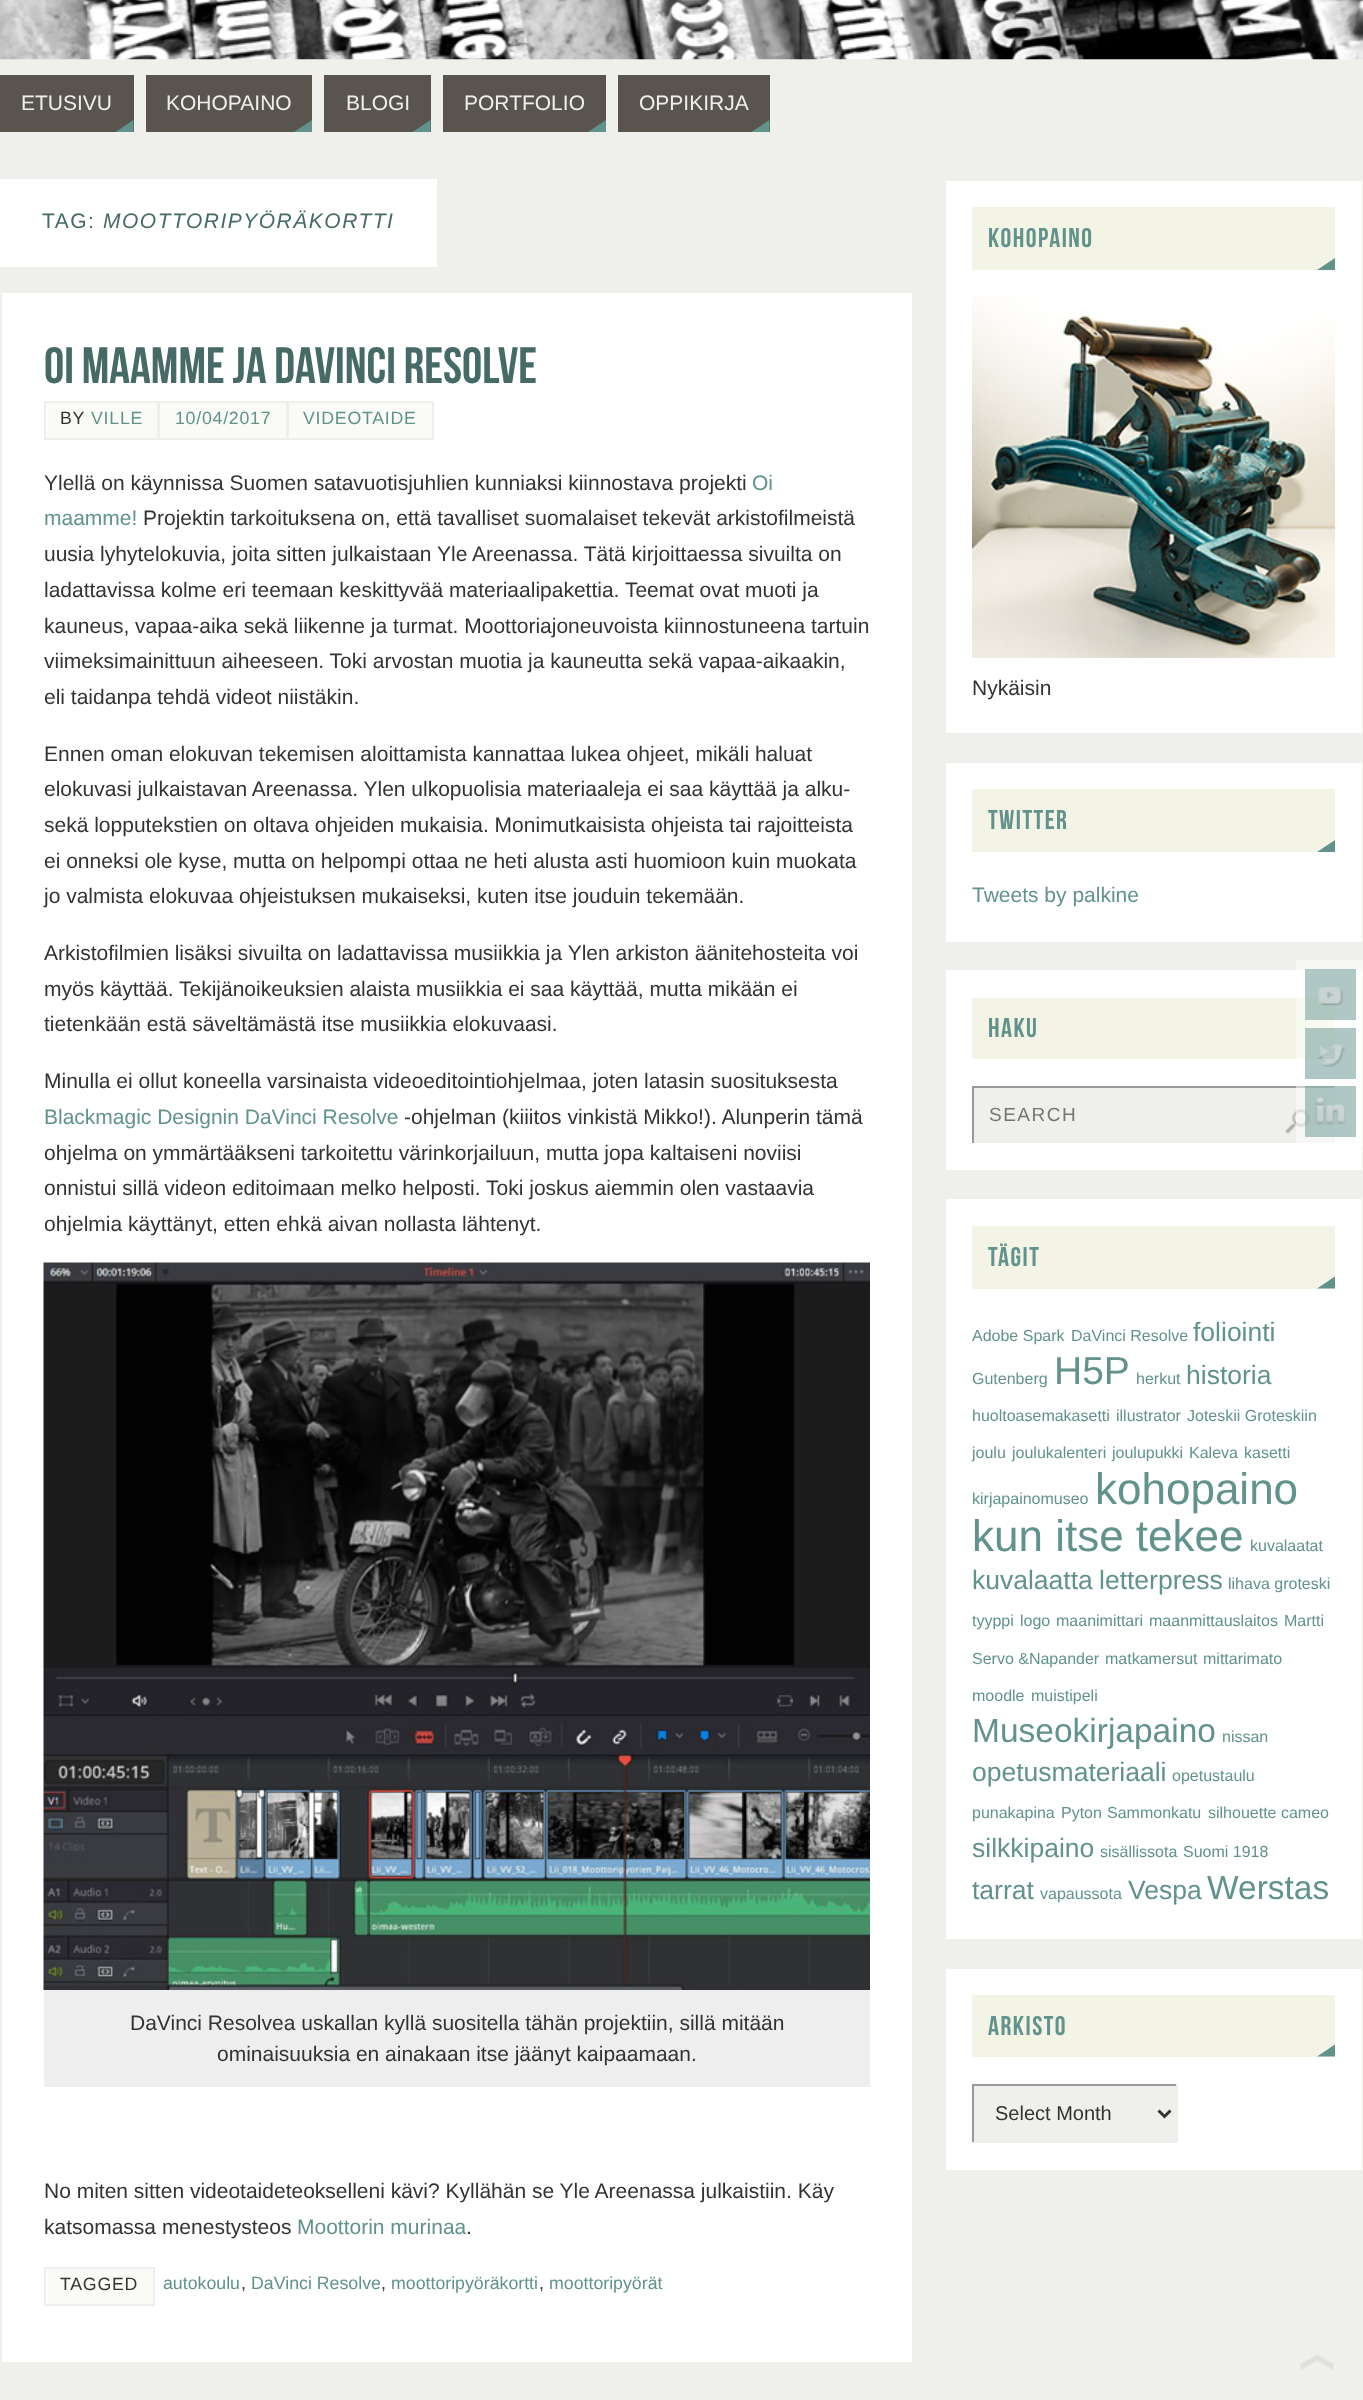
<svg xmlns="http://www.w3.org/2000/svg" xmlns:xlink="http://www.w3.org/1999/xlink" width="1363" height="2400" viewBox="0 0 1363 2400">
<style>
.cls-1{font:21px Liberation Sans;fill:#eeeeee}
.cls-2{font:21px Liberation Sans;letter-spacing:1.5px;fill:#466a66}
.cls-3{font:italic 21px Liberation Sans;letter-spacing:1.5px;fill:#466a66}
.cls-4{font:51px Bebas Neue;fill:#466a66}
.cls-5{font:17.75px Liberation Sans;letter-spacing:0.75px;fill:#333333}
.cls-6{font:17.75px Liberation Sans;letter-spacing:0.75px;fill:#61928c}
.cls-7{font:21px Liberation Sans;fill:#333333}
.cls-8{font:21px Liberation Sans;fill:#61928c}
.cls-9{font:17.75px Liberation Sans;fill:#61928c}
.cls-10{font:17.75px Liberation Sans;fill:#333333}
.cls-11{font:27px Bebas Neue;letter-spacing:1.5px;fill:#61928c}
.cls-12{font:19px Liberation Sans;letter-spacing:1.5px;fill:#757575}
.cls-13{font:16px Liberation Sans;fill:#61928c}
.cls-14{font:26.5px Liberation Sans;fill:#61928c}
.cls-15{font:39px Liberation Sans;fill:#61928c}
.cls-16{font:44px Liberation Sans;fill:#61928c}
.cls-17{font:33.5px Liberation Sans;fill:#61928c}
.cls-18{font:20px Liberation Sans;fill:#333333}
</style>
<rect width="100%" height="100%" fill="#eff0ec"/>
<image xlink:href="image0.png" x="0" y="0" width="1363" height="60"/>
<rect fill="#59554e" x="0" y="75" width="134" height="57"/>
<path fill="#61928c" d="M133.5 132H115.5L133.5 120Z"/>
<rect fill="#59554e" x="146" y="75" width="166" height="57"/>
<path fill="#61928c" d="M312 132H294L312 120Z"/>
<rect fill="#59554e" x="324" y="75" width="107" height="57"/>
<path fill="#61928c" d="M430.5 132H412.5L430.5 120Z"/>
<rect fill="#59554e" x="443" y="75" width="163" height="57"/>
<path fill="#61928c" d="M606 132H588L606 120Z"/>
<rect fill="#59554e" x="618" y="75" width="152" height="57"/>
<path fill="#61928c" d="M769.5 132H751.5L769.5 120Z"/>
<rect fill="#ffffff" x="0" y="179" width="437" height="88"/>
<rect fill="#ffffff" x="2" y="293" width="910" height="2069"/>
<rect fill="#fafaf7" stroke="#eeeeee" stroke-width="2" x="45" y="402" width="113" height="37"/>
<rect fill="#fafaf7" stroke="#eeeeee" stroke-width="2" x="159" y="402" width="128" height="37"/>
<rect fill="#fafaf7" stroke="#eeeeee" stroke-width="2" x="288" y="402" width="145" height="37"/>
<rect fill="#eeeeee" x="44" y="1263" width="826" height="824"/>
<image xlink:href="image1.png" x="43" y="1262" width="827" height="728"/>
<rect fill="#fafaf7" stroke="#eeeeee" stroke-width="2" x="45" y="2268" width="109" height="37"/>
<rect fill="#ffffff" x="946" y="181" width="416" height="552"/>
<rect fill="#f3f4e5" x="972" y="207" width="363" height="63"/>
<path fill="#61928c" d="M1335 270H1317L1335 258Z"/>
<image xlink:href="image2.png" x="972" y="296" width="363" height="362"/>
<rect fill="#ffffff" x="946" y="763" width="416" height="179"/>
<rect fill="#f3f4e5" x="972" y="789" width="363" height="63"/>
<path fill="#61928c" d="M1335 852H1317L1335 840Z"/>
<rect fill="#ffffff" x="946" y="970" width="416" height="200"/>
<rect fill="#f3f4e5" x="972" y="998" width="363" height="61"/>
<path fill="#61928c" d="M1335 1059H1317L1335 1047Z"/>
<rect fill="#eff0ec" x="974" y="1088" width="360" height="54"/>
<rect fill="#999999" x="972" y="1086" width="363" height="2"/>
<rect fill="#eeeeee" x="1334" y="1086" width="1" height="57"/>
<rect fill="#eeeeee" x="972" y="1142" width="363" height="1"/>
<rect fill="#999999" x="972" y="1086" width="2" height="57"/>
<image xlink:href="image3.png" x="1285" y="1109" width="25" height="25"/>
<rect fill="#ffffff" x="946" y="1199" width="416" height="740"/>
<rect fill="#f3f4e5" x="972" y="1226" width="363" height="63"/>
<path fill="#61928c" d="M1335 1288.5H1317L1335 1276.5Z"/>
<rect fill="#ffffff" x="946" y="1969" width="416" height="201"/>
<rect fill="#f3f4e5" x="972" y="1995" width="363" height="62"/>
<path fill="#61928c" d="M1335 2056.5H1317L1335 2044.5Z"/>
<rect fill="#eff0ec" x="974" y="2086" width="202" height="55"/>
<rect fill="#999999" x="972" y="2084" width="206" height="2"/>
<rect fill="#eeeeee" x="1176" y="2084" width="2" height="58"/>
<rect fill="#eeeeee" x="972" y="2141" width="206" height="2"/>
<rect fill="#999999" x="972" y="2084" width="2" height="58"/>
<path fill="none" stroke="#333333" stroke-width="3" d="M1158.5 2110.5L1164.5 2116.5L1170.5 2110.5"/>
<rect fill="#ffffff" fill-opacity="0.5" x="1296" y="960" width="67" height="186"/>
<rect fill="#61928c" fill-opacity="0.5" x="1305" y="969" width="51" height="51"/>
<image xlink:href="image4.png" x="1318" y="987" width="25" height="19"/>
<rect fill="#61928c" fill-opacity="0.5" x="1305" y="1028" width="51" height="51"/>
<image xlink:href="image5.png" x="1319" y="1044" width="26" height="23"/>
<rect fill="#61928c" fill-opacity="0.5" x="1305" y="1086" width="51" height="51"/>
<image xlink:href="image6.png" x="1315" y="1096" width="31" height="29"/>
<image xlink:href="image7.png" x="1300" y="2355" width="34" height="15"/>
<text class="cls-1" x="21" y="110">ETUSIVU</text>
<text class="cls-1" x="166" y="110">KOHOPAINO</text>
<text class="cls-1" x="346" y="110">BLOGI</text>
<text class="cls-1" x="464" y="110">PORTFOLIO</text>
<text class="cls-1" x="639" y="110">OPPIKIRJA</text>
<text class="cls-2" x="42" y="228">TAG:</text>
<text class="cls-3" x="103" y="228">MOOTTORIPYÖRÄKORTTI</text>
<text class="cls-4" x="44" y="383">Oi maamme ja DaVinci Resolve</text>
<text class="cls-5" x="60" y="424">BY</text>
<text class="cls-6" x="91" y="424">VILLE</text>
<text class="cls-6" x="175" y="424">10/04/2017</text>
<text class="cls-6" x="303" y="424">VIDEOTAIDE</text>
<text class="cls-7" x="44" y="490">Ylellä on käynnissa Suomen satavuotisjuhlien kunniaksi kiinnostava projekti</text>
<text class="cls-8" x="752" y="490">Oi</text>
<text class="cls-8" x="44" y="525">maamme!</text>
<text class="cls-7" x="143" y="525">Projektin tarkoituksena on, että tavalliset suomalaiset tekevät arkistofilmeistä</text>
<text class="cls-7"><tspan x="44" y="561">uusia lyhytelokuvia, joita sitten julkaistaan Yle Areenassa. Tätä kirjoittaessa sivuilta on</tspan><tspan x="44" y="597">ladattavissa kolme eri teemaan keskittyvää materiaalipakettia. Teemat ovat muoti ja</tspan><tspan x="44" y="633">kauneus, vapaa-aika sekä liikenne ja turmat. Moottoriajoneuvoista kiinnostuneena tartuin</tspan><tspan x="44" y="668">viimeksimainittuun aiheeseen. Toki arvostan muotia ja kauneutta sekä vapaa-aikaakin,</tspan><tspan x="44" y="704">eli taidanpa tehdä videot niistäkin.</tspan></text>
<text class="cls-7"><tspan x="44" y="761">Ennen oman elokuvan tekemisen aloittamista kannattaa lukea ohjeet, mikäli haluat</tspan><tspan x="44" y="796">elokuvasi julkaistavan Areenassa. Ylen ulkopuolisia materiaaleja ei saa käyttää ja alku-</tspan><tspan x="44" y="832">sekä lopputekstien on oltava ohjeiden mukaisia. Monimutkaisista ohjeista tai rajoitteista</tspan><tspan x="44" y="868">ei onneksi ole kyse, mutta on helpompi ottaa ne heti alusta asti huomioon kuin muokata</tspan><tspan x="44" y="903">jo valmista elokuvaa ohjeistuksen mukaiseksi, kuten itse jouduin tekemään.</tspan></text>
<text class="cls-7"><tspan x="44" y="960">Arkistofilmien lisäksi sivuilta on ladattavissa musiikkia ja Ylen arkiston äänitehosteita voi</tspan><tspan x="44" y="996">myös käyttää. Tekijänoikeuksien alaista musiikkia ei saa käyttää, mutta mikään ei</tspan><tspan x="44" y="1031">tietenkään estä säveltämästä itse musiikkia elokuvaasi.</tspan></text>
<text class="cls-7" x="44" y="1088">Minulla ei ollut koneella varsinaista videoeditointiohjelmaa, joten latasin suosituksesta</text>
<text class="cls-8" x="44" y="1124">Blackmagic Designin DaVinci Resolve</text>
<text class="cls-7" x="404" y="1124">-ohjelman (kiiitos vinkistä Mikko!). Alunperin tämä</text>
<text class="cls-7"><tspan x="44" y="1160">ohjelma on ymmärtääkseni tarkoitettu värinkorjailuun, mutta jopa kaltaiseni noviisi</tspan><tspan x="44" y="1195">onnistui sillä videon editoimaan melko helposti. Toki joskus aiemmin olen vastaavia</tspan><tspan x="44" y="1231">ohjelmia käyttänyt, etten ehkä aivan nollasta lähtenyt.</tspan></text>
<text class="cls-7" x="130" y="2030">DaVinci Resolvea uskallan kyllä suositella tähän projektiin, sillä mitään</text>
<text class="cls-7" x="217" y="2061">ominaisuuksia en ainakaan itse jäänyt kaipaamaan.</text>
<text class="cls-7"><tspan x="44" y="2198">No miten sitten videotaideteokselleni kävi? Kyllähän se Yle Areenassa julkaistiin. Käy</tspan><tspan x="44" y="2234">katsomassa menestysteos</tspan></text>
<text class="cls-8" x="297" y="2234">Moottorin murinaa</text>
<text class="cls-7" x="466" y="2234">.</text>
<text class="cls-5" x="60" y="2290">TAGGED</text>
<text class="cls-9" x="163" y="2289">autokoulu</text>
<text class="cls-10" x="241" y="2289">,</text>
<text class="cls-9" x="251" y="2289">DaVinci Resolve</text>
<text class="cls-10" x="381" y="2289">,</text>
<text class="cls-9" x="391" y="2289">moottoripyöräkortti</text>
<text class="cls-10" x="539" y="2289">,</text>
<text class="cls-9" x="549" y="2289">moottoripyörät</text>
<text class="cls-11" x="988" y="247">KOHOPAINO</text>
<text class="cls-7" x="972" y="695">Nykäisin</text>
<text class="cls-11" x="988" y="829">TWITTER</text>
<text class="cls-8" x="972" y="902">Tweets by palkine</text>
<text class="cls-11" x="988" y="1037">HAKU</text>
<text class="cls-12" x="989" y="1121">SEARCH</text>
<text class="cls-11" x="988" y="1266">TÄGIT</text>
<text class="cls-13" x="972" y="1341">Adobe Spark</text>
<text class="cls-13" x="1071" y="1341">DaVinci Resolve</text>
<text class="cls-14" x="1193" y="1341">foliointi</text>
<text class="cls-13" x="972" y="1384">Gutenberg</text>
<text class="cls-15" x="1054" y="1384">H5P</text>
<text class="cls-13" x="1136" y="1384">herkut</text>
<text class="cls-14" x="1186" y="1384">historia</text>
<text class="cls-13" x="972" y="1421">huoltoasemakasetti</text>
<text class="cls-13" x="1116" y="1421">illustrator</text>
<text class="cls-13" x="1187" y="1421">Joteskii Groteskiin</text>
<text class="cls-13" x="972" y="1458">joulu</text>
<text class="cls-13" x="1012" y="1458">joulukalenteri</text>
<text class="cls-13" x="1112" y="1458">joulupukki</text>
<text class="cls-13" x="1189" y="1458">Kaleva</text>
<text class="cls-13" x="1244" y="1458">kasetti</text>
<text class="cls-13" x="972" y="1504">kirjapainomuseo</text>
<text class="cls-16" x="1095" y="1504">kohopaino</text>
<text class="cls-16" x="972" y="1551">kun itse tekee</text>
<text class="cls-13" x="1250" y="1551">kuvalaatat</text>
<text class="cls-14" x="972" y="1589">kuvalaatta</text>
<text class="cls-14" x="1099" y="1589">letterpress</text>
<text class="cls-13" x="1228" y="1589">lihava groteski</text>
<text class="cls-13" x="972" y="1626">tyyppi</text>
<text class="cls-13" x="1020" y="1626">logo</text>
<text class="cls-13" x="1056" y="1626">maanimittari</text>
<text class="cls-13" x="1149" y="1626">maanmittauslaitos</text>
<text class="cls-13" x="1284" y="1626">Martti</text>
<text class="cls-13" x="972" y="1664">Servo &amp;Napander</text>
<text class="cls-13" x="1105" y="1664">matkamersut</text>
<text class="cls-13" x="1203" y="1664">mittarimato</text>
<text class="cls-13" x="972" y="1701">moodle</text>
<text class="cls-13" x="1031" y="1701">muistipeli</text>
<text class="cls-17" x="972" y="1742">Museokirjapaino</text>
<text class="cls-13" x="1222" y="1742">nissan</text>
<text class="cls-14" x="972" y="1781">opetusmateriaali</text>
<text class="cls-13" x="1172" y="1781">opetustaulu</text>
<text class="cls-13" x="972" y="1818">punakapina</text>
<text class="cls-13" x="1061" y="1818">Pyton</text>
<text class="cls-13" x="1107" y="1818">Sammonkatu</text>
<text class="cls-13" x="1208" y="1818">silhouette cameo</text>
<text class="cls-14" x="972" y="1857">silkkipaino</text>
<text class="cls-13" x="1100" y="1857">sisällissota</text>
<text class="cls-13" x="1183" y="1857">Suomi 1918</text>
<text class="cls-14" x="972" y="1899">tarrat</text>
<text class="cls-13" x="1040" y="1899">vapaussota</text>
<text class="cls-14" x="1128" y="1899">Vespa</text>
<text class="cls-17" x="1207" y="1899">Werstas</text>
<text class="cls-11" x="988" y="2035">ARKISTO</text>
<text class="cls-18" x="995" y="2120">Select Month</text>
</svg>
